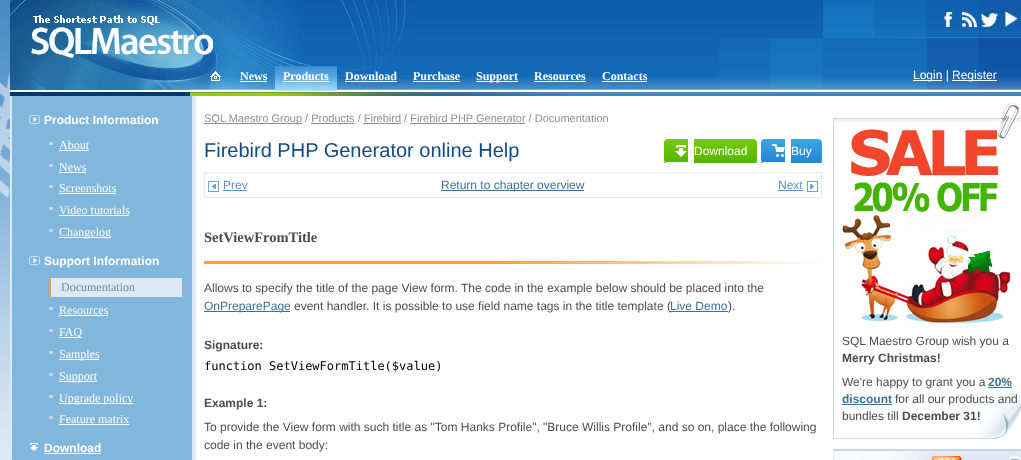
<svg xmlns="http://www.w3.org/2000/svg" xmlns:xlink="http://www.w3.org/1999/xlink" width="1021" height="460" viewBox="0 0 1021 460">
<style>
.cls-1{font:bold 12px Liberation Serif;fill:#ffffff}
.cls-2{font:12px Liberation Sans;fill:#ffffff}
.cls-3{font:bold 12px Liberation Sans;fill:#ffffff}
.cls-4{font:12px Liberation Serif;fill:#ffffff}
.cls-5{font:12px Liberation Serif;fill:#7286a3}
.cls-6{font:11px Liberation Sans;fill:#8f8f8f}
.cls-7{font:20px Liberation Sans;fill:#104a85}
.cls-8{font:12px Liberation Sans;fill:#5a94ce}
.cls-9{font:12px Liberation Sans;fill:#3a739a}
.cls-10{font:bold 14.5px Liberation Serif;fill:#4c4c4c}
.cls-11{font:12px Liberation Sans;fill:#4c4c4c}
.cls-12{font:bold 12px Liberation Sans;fill:#4c4c4c}
.cls-13{font:12px DejaVu Sans Mono;fill:#000000}
.cls-14{font:bold 12px Liberation Sans;fill:#3a739a}
</style>
<defs>
<clipPath id="clip1"><path d="M667 139H688V163H667C665.5 163 664 161.5 664 160V142C664 140.5 665.5 139 667 139Z"/></clipPath>
<linearGradient id="g1" gradientUnits="userSpaceOnUse" x1="676" y1="139" x2="676" y2="162"><stop offset="0" stop-color="#77ca00"/><stop offset="1" stop-color="#54b500"/></linearGradient>
<linearGradient id="g2" gradientUnits="userSpaceOnUse" x1="676" y1="162" x2="676" y2="185"><stop offset="0" stop-color="#77ca00"/><stop offset="1" stop-color="#54b500"/></linearGradient>
<clipPath id="clip2"><path d="M694 139H754C755.5 139 757 140.5 757 142V161C757 162.5 755.5 164 754 164H694Z"/></clipPath>
<linearGradient id="g3" gradientUnits="userSpaceOnUse" x1="726" y1="139" x2="726" y2="163"><stop offset="0" stop-color="#77ca00"/><stop offset="1" stop-color="#54b500"/></linearGradient>
<clipPath id="clip3"><path d="M764 139H785V163H764C762.5 163 761 161.5 761 160V142C761 140.5 762.5 139 764 139Z"/></clipPath>
<linearGradient id="g4" gradientUnits="userSpaceOnUse" x1="773" y1="139" x2="773" y2="162"><stop offset="0" stop-color="#3fa5e3"/><stop offset="1" stop-color="#2286d6"/></linearGradient>
<linearGradient id="g5" gradientUnits="userSpaceOnUse" x1="773" y1="162" x2="773" y2="185"><stop offset="0" stop-color="#3fa5e3"/><stop offset="1" stop-color="#2286d6"/></linearGradient>
<clipPath id="clip4"><path d="M791 139H819C820.5 139 822 140.5 822 142V161C822 162.5 820.5 164 819 164H791Z"/></clipPath>
<linearGradient id="g6" gradientUnits="userSpaceOnUse" x1="807" y1="139" x2="807" y2="163"><stop offset="0" stop-color="#3fa5e3"/><stop offset="1" stop-color="#2286d6"/></linearGradient>
</defs>
<rect width="100%" height="100%" fill="#ffffff"/>
<image xlink:href="image0.png" x="0" y="0" width="10" height="460"/>
<image xlink:href="image1.png" x="10" y="0" width="400" height="90"/>
<image xlink:href="image2.png" x="31" y="15" width="182" height="43"/>
<image xlink:href="image3.png" x="410" y="0" width="611" height="90"/>
<image xlink:href="image4.png" x="944" y="12" width="9" height="15"/>
<image xlink:href="image5.png" x="962" y="12" width="15" height="15"/>
<image xlink:href="image6.png" x="981" y="12" width="17" height="15"/>
<image xlink:href="image7.png" x="1005" y="12" width="13" height="15"/>
<image xlink:href="image8.png" x="210" y="71" width="11" height="10"/>
<rect fill="#ffffff" x="240" y="81" width="27" height="1"/>
<image xlink:href="image9.png" x="275" y="66" width="62" height="25"/>
<rect fill="#ffffff" x="283" y="81" width="46" height="1"/>
<rect fill="#ffffff" x="345" y="81" width="52" height="1"/>
<rect fill="#ffffff" x="413" y="81" width="47" height="1"/>
<rect fill="#ffffff" x="476" y="81" width="42" height="1"/>
<rect fill="#ffffff" x="534" y="81" width="52" height="1"/>
<rect fill="#ffffff" x="602" y="81" width="45" height="1"/>
<rect fill="#ffffff" x="913" y="80" width="29" height="1"/>
<rect fill="#ffffff" x="952" y="80" width="45" height="1"/>
<rect fill="#003771" x="10" y="92" width="180" height="4"/>
<image xlink:href="image10.png" x="573" y="92" width="448" height="4"/>
<image xlink:href="image11.png" x="190" y="92" width="383" height="4"/>
<rect fill="#dfe9f3" x="10" y="96" width="2" height="364"/>
<rect fill="#dfe9f3" x="192" y="96" width="4" height="364"/>
<rect fill="#81b7dc" x="12" y="96" width="180" height="364"/>
<image xlink:href="image12.png" x="29" y="115" width="11" height="9"/>
<rect fill="#c0dbee" x="49" y="142" width="4" height="3"/>
<rect fill="#ffffff" x="59" y="150" width="30" height="1"/>
<rect fill="#c0dbee" x="49" y="164" width="4" height="3"/>
<rect fill="#ffffff" x="59" y="172" width="27" height="1"/>
<rect fill="#c0dbee" x="49" y="185" width="4" height="3"/>
<rect fill="#ffffff" x="59" y="193" width="57" height="1"/>
<rect fill="#c0dbee" x="49" y="207" width="4" height="3"/>
<rect fill="#ffffff" x="59" y="215" width="70" height="1"/>
<rect fill="#c0dbee" x="49" y="229" width="4" height="3"/>
<rect fill="#ffffff" x="59" y="237" width="52" height="1"/>
<image xlink:href="image12.png" x="29" y="256" width="11" height="9"/>
<rect fill="#dfe9f3" x="51" y="278" width="131" height="19"/>
<rect fill="#ff9933" x="49" y="278" width="2" height="19"/>
<rect fill="#c0dbee" x="49" y="307" width="4" height="3"/>
<rect fill="#ffffff" x="59" y="315" width="49" height="1"/>
<rect fill="#c0dbee" x="49" y="329" width="4" height="3"/>
<rect fill="#ffffff" x="59" y="337" width="23" height="1"/>
<rect fill="#c0dbee" x="49" y="351" width="4" height="3"/>
<rect fill="#ffffff" x="59" y="359" width="40" height="1"/>
<rect fill="#c0dbee" x="49" y="373" width="4" height="3"/>
<rect fill="#ffffff" x="59" y="381" width="38" height="1"/>
<rect fill="#c0dbee" x="49" y="395" width="4" height="3"/>
<rect fill="#ffffff" x="59" y="403" width="74" height="1"/>
<rect fill="#c0dbee" x="49" y="416" width="4" height="3"/>
<rect fill="#ffffff" x="59" y="424" width="70" height="1"/>
<image xlink:href="image13.png" x="30" y="443" width="8" height="8"/>
<rect fill="#ffffff" x="44" y="453" width="57" height="1"/>
<rect fill="#8f8f8f" x="204" y="123" width="98" height="1"/>
<rect fill="#8f8f8f" x="311" y="123" width="43" height="1"/>
<rect fill="#8f8f8f" x="363" y="123" width="38" height="1"/>
<rect fill="#8f8f8f" x="410" y="123" width="115" height="1"/>
<g clip-path="url(#clip1)">
<path fill="url(#g1)" d="M667 139H688V162H664V142C664 140.5 665.5 139 667 139Z"/>
</g>
<image xlink:href="image14.png" x="675" y="145" width="12" height="12"/>
<rect fill="url(#g2)" x="664" y="162" width="2" height="1"/>
<g clip-path="url(#clip2)">
<path fill="url(#g3)" d="M694 139H754C755.5 139 757 140.5 757 142V163H694Z"/>
</g>
<g clip-path="url(#clip3)">
<path fill="url(#g4)" d="M764 139H785V162H761V142C761 140.5 762.5 139 764 139Z"/>
</g>
<image xlink:href="image15.png" x="771" y="144" width="14" height="13"/>
<rect fill="url(#g5)" x="761" y="162" width="2" height="1"/>
<g clip-path="url(#clip4)">
<path fill="url(#g6)" d="M791 139H819C820.5 139 822 140.5 822 142V163H791Z"/>
</g>
<rect fill="none" stroke="#dfe9f3" x="204.5" y="172.5" width="617" height="25"/>
<image xlink:href="image16.png" x="208" y="181" width="11" height="11"/>
<rect fill="#5a94ce" x="223" y="190" width="24" height="1"/>
<rect fill="#3a739a" x="441" y="190" width="143" height="1"/>
<rect fill="#5a94ce" x="778" y="190" width="25" height="1"/>
<image xlink:href="image17.png" x="807" y="181" width="11" height="11"/>
<rect fill="#ffa13d" x="204" y="261" width="301" height="3"/>
<image xlink:href="image18.png" x="505" y="261" width="317" height="3"/>
<rect fill="#3a739a" x="204" y="311" width="86" height="1"/>
<rect fill="none" stroke="#cad8ee" x="833.5" y="118.5" width="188" height="320"/>
<rect fill="#f1f4f8" x="834" y="119" width="187" height="3"/>
<image xlink:href="image20.png" x="842" y="129" width="169" height="195"/>
<image xlink:href="image19.png" x="997" y="103" width="22" height="37"/>
<rect fill="#3a739a" x="988" y="387" width="24" height="1"/>
<rect fill="#3a739a" x="842" y="404" width="50" height="1"/>
<image xlink:href="image21.png" x="972" y="390" width="49" height="49"/>
<path fill="#c8d6e9" d="M833 449H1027L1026 451H834Z"/>
<path fill="#dfe9f3" d="M833 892V449L834 451V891Z"/>
<rect fill="#dfe9f3" x="931" y="451" width="90" height="9"/>
<image xlink:href="image22.png" x="834" y="451" width="97" height="9"/>
<image xlink:href="image23.png" x="932" y="456" width="30" height="4"/>
<image xlink:href="image24.png" x="1009" y="455" width="12" height="5"/>
<text class="cls-1" x="240" y="80">News</text>
<text class="cls-1" x="283" y="80">Products</text>
<text class="cls-1" x="345" y="80">Download</text>
<text class="cls-1" x="413" y="80">Purchase</text>
<text class="cls-1" x="476" y="80">Support</text>
<text class="cls-1" x="534" y="80">Resources</text>
<text class="cls-1" x="602" y="80">Contacts</text>
<text class="cls-2" x="913" y="79">Login |</text>
<text class="cls-2" x="952" y="79">Register</text>
<text class="cls-3" x="44" y="124">Product Information</text>
<text class="cls-4"><tspan x="59" y="149">About</tspan><tspan x="59" y="171">News</tspan><tspan x="59" y="192">Screenshots</tspan><tspan x="59" y="214">Video tutorials</tspan><tspan x="59" y="236">Changelog</tspan></text>
<text class="cls-3" x="44" y="265">Support Information</text>
<text class="cls-5" x="61" y="291">Documentation</text>
<text class="cls-4"><tspan x="59" y="314">Resources</tspan><tspan x="59" y="336">FAQ</tspan><tspan x="59" y="358">Samples</tspan><tspan x="59" y="380">Support</tspan><tspan x="59" y="402">Upgrade policy</tspan><tspan x="59" y="423">Feature matrix</tspan></text>
<text class="cls-3" x="44" y="452">Download</text>
<text class="cls-6" x="204" y="122">SQL Maestro Group / Products / Firebird / Firebird PHP Generator / Documentation</text>
<text class="cls-7" x="204" y="157">Firebird PHP Generator online Help</text>
<text class="cls-2" x="694" y="155">Download</text>
<text class="cls-2" x="791" y="155">Buy</text>
<text class="cls-8" x="223" y="189">Prev</text>
<text class="cls-9" x="441" y="189">Return to chapter overview</text>
<text class="cls-8" x="778" y="189">Next</text>
<text class="cls-10" x="204" y="242">SetViewFromTitle</text>
<text class="cls-11" x="204" y="292">Allows to specify the title of the page View form. The code in the example below should be placed into the</text>
<text class="cls-9" x="204" y="310">OnPreparePage</text>
<text class="cls-11" x="294" y="310">event handler. It is possible to use field name tags in the title template (</text>
<text class="cls-9" x="670" y="310">Live Demo</text>
<rect fill="#3a739a" x="670" y="311" width="58" height="1"/>
<text class="cls-11" x="728" y="310">).</text>
<text class="cls-12" x="204" y="349">Signature:</text>
<text class="cls-13" x="204" y="370">function SetViewFormTitle($value)</text>
<text class="cls-12" x="204" y="407">Example 1:</text>
<text class="cls-11"><tspan x="204" y="431">To provide the View form with such title as "Tom Hanks Profile", "Bruce Willis Profile", and so on, place the following</tspan><tspan x="204" y="449">code in the event body:</tspan></text>
<text class="cls-11" x="842" y="345">SQL Maestro Group wish you a</text>
<text class="cls-12" x="842" y="362">Merry Christmas!</text>
<text class="cls-11" x="842" y="386">We're happy to grant you a</text>
<text class="cls-14" x="988" y="386">20%</text>
<text class="cls-14" x="842" y="403">discount</text>
<text class="cls-11" x="895" y="403">for all our products and</text>
<text class="cls-11" x="842" y="420">bundles till</text>
<text class="cls-12" x="902" y="420">December 31!</text>
</svg>
